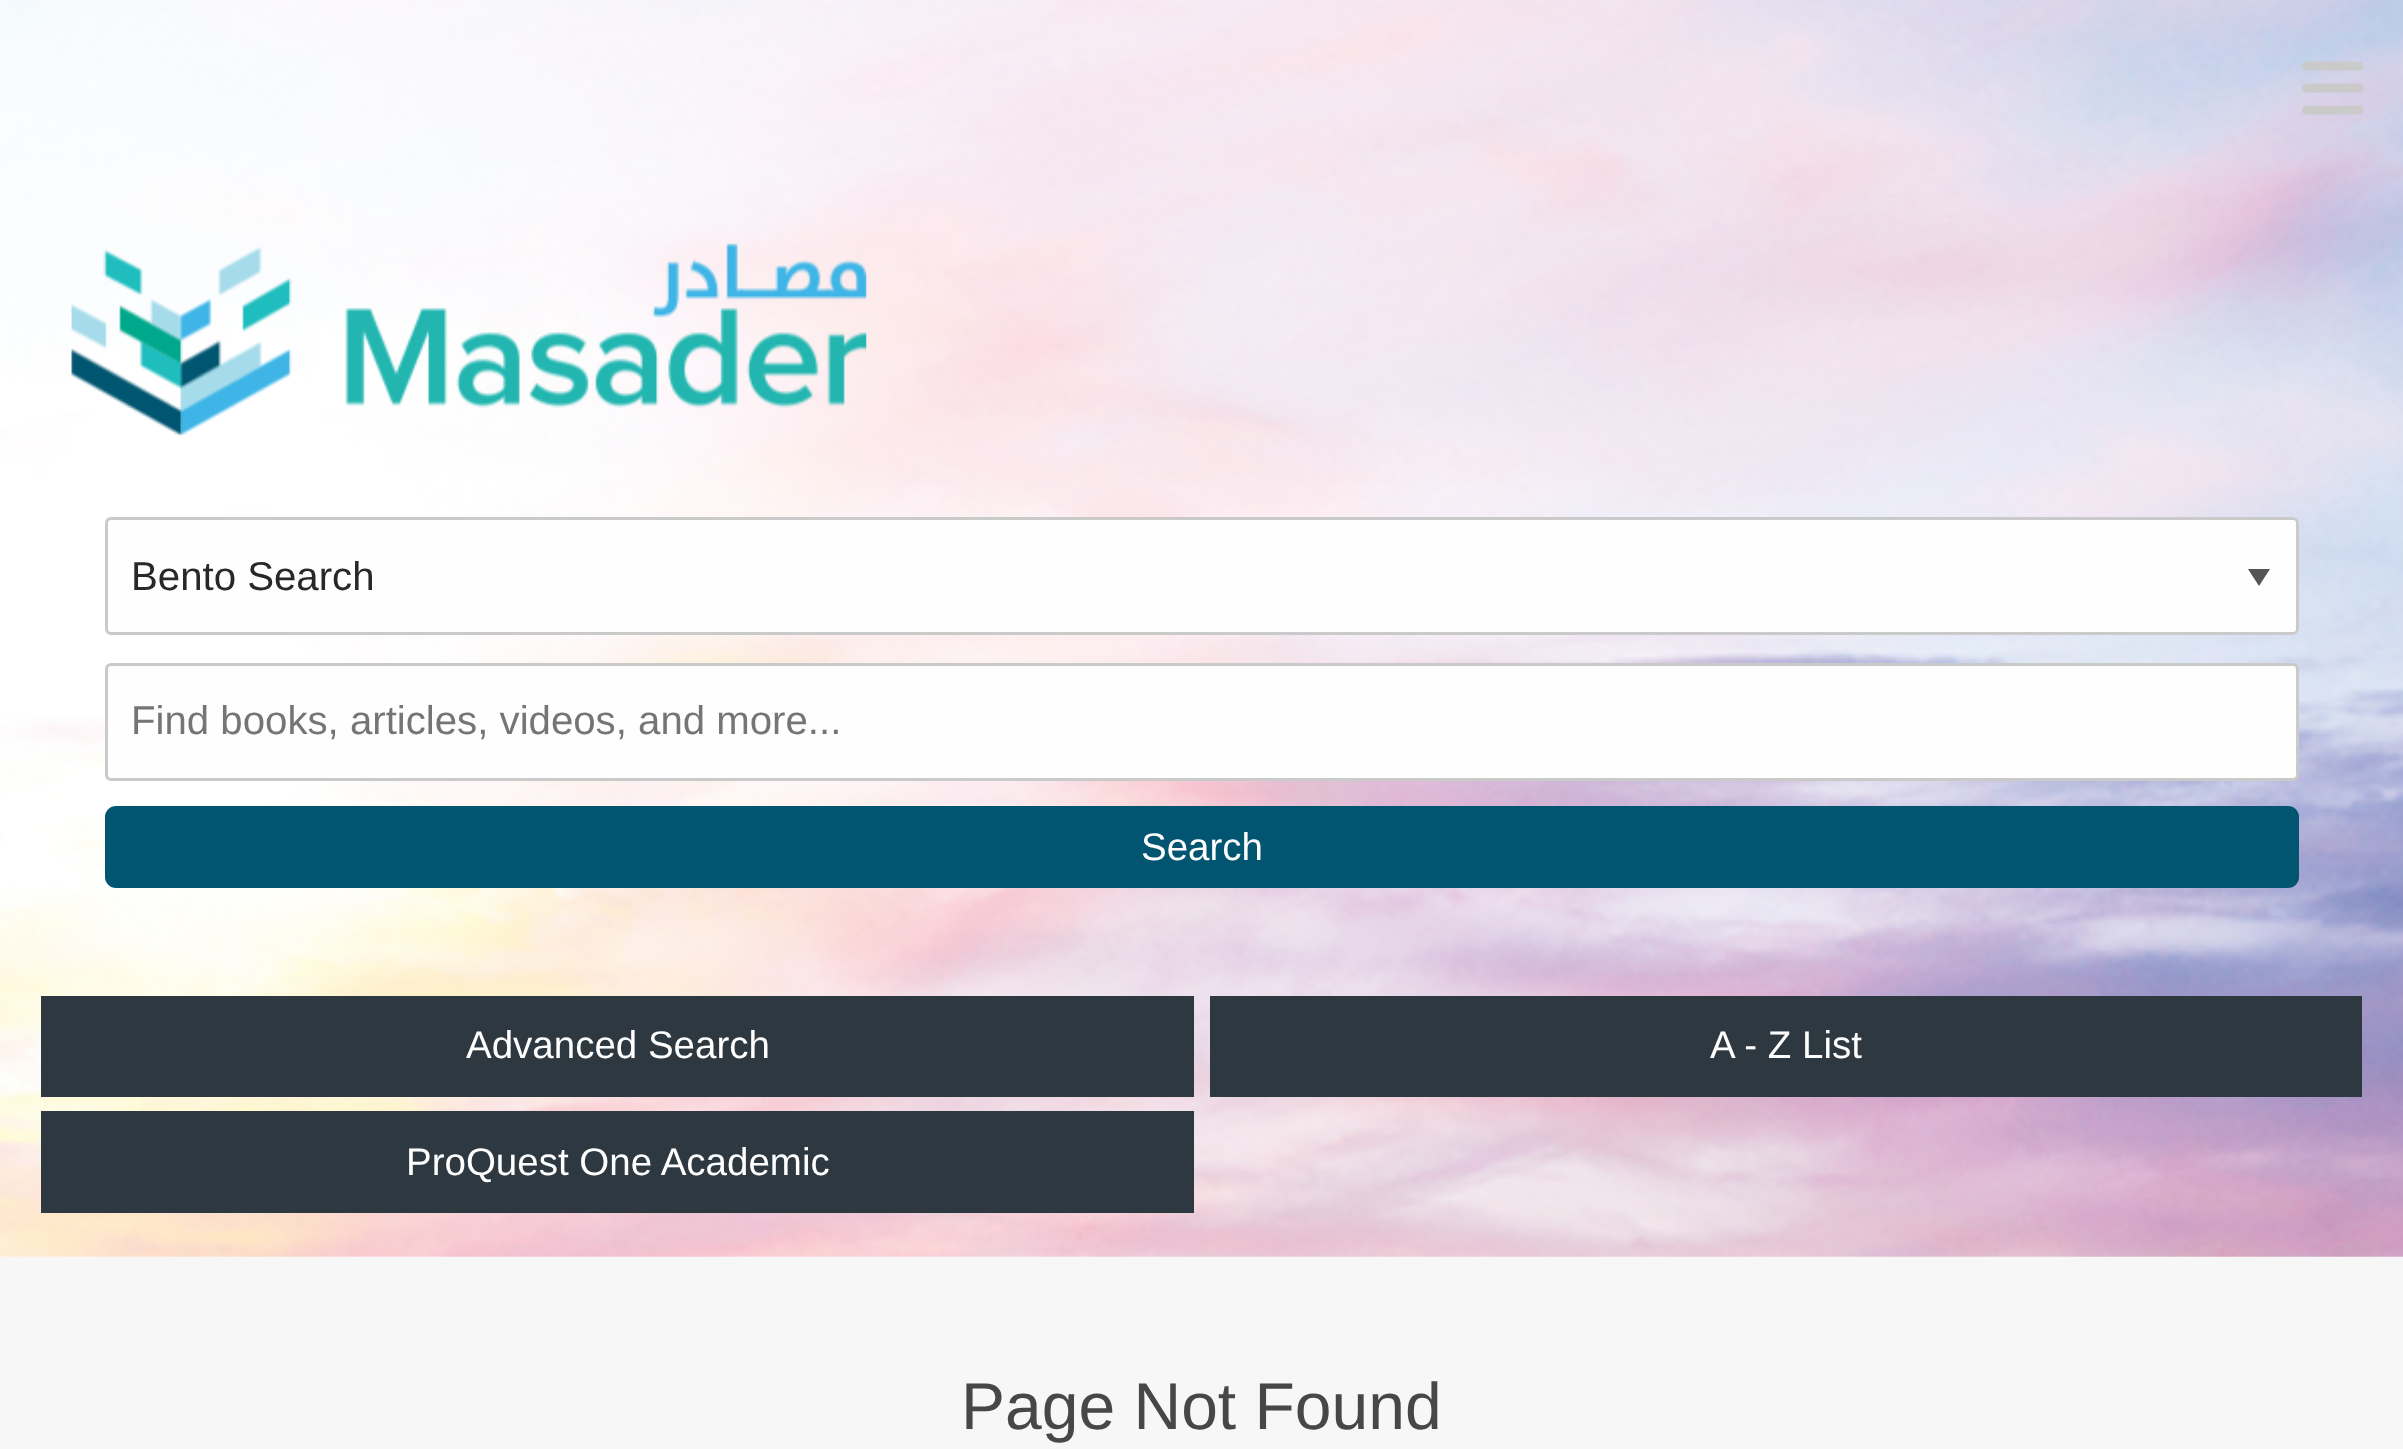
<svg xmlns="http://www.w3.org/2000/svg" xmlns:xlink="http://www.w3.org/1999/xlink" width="2403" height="1449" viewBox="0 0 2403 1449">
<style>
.cls-1{font:40.2px Liberation Sans;fill:#282828}
.cls-2{font:40.2px Liberation Sans;fill:#757575}
.cls-3{font:38.5px Liberation Sans;fill:#fefefe}
.cls-4{font:66px Liberation Sans;fill:#474747}
</style>
<rect width="100%" height="100%" fill="#ffffff"/>
<image xlink:href="image0.png" x="0" y="0" width="2403" height="1257"/>
<image xlink:href="image1.png" x="2301" y="61" width="63" height="54"/>
<image xlink:href="image2.png" x="71" y="243" width="796" height="192"/>
<rect fill="#fefefe" x="105" y="517" width="2194" height="118" rx="6"/>
<path fill="#545454" d="M2248 569H2270L2259 586Z"/>
<rect fill="none" stroke="#cacaca" stroke-width="3" x="106.5" y="518.5" width="2191" height="115" rx="4.5"/>
<rect fill="#fefefe" stroke="#cacaca" stroke-width="3" x="106.5" y="664.5" width="2191" height="115" rx="4.5"/>
<rect fill="#025570" x="105" y="806" width="2194" height="82" rx="11"/>
<rect fill="#2d3840" x="41" y="996" width="1153" height="101"/>
<rect fill="#2d3840" x="1210" y="996" width="1152" height="101"/>
<rect fill="#2d3840" x="41" y="1111" width="1153" height="102"/>
<rect fill="#f7f7f7" x="0" y="1257" width="2403" height="192"/>
<text class="cls-1" x="131" y="590">Bento Search</text>
<text class="cls-2" x="131" y="734">Find books, articles, videos, and more...</text>
<text class="cls-3" x="1141" y="860">Search</text>
<text class="cls-3" x="466" y="1058">Advanced Search</text>
<text class="cls-3" x="1710" y="1058">A - Z List</text>
<text class="cls-3" x="406" y="1175">ProQuest One Academic</text>
<text class="cls-4" x="961" y="1429">Page Not Found</text>
</svg>
